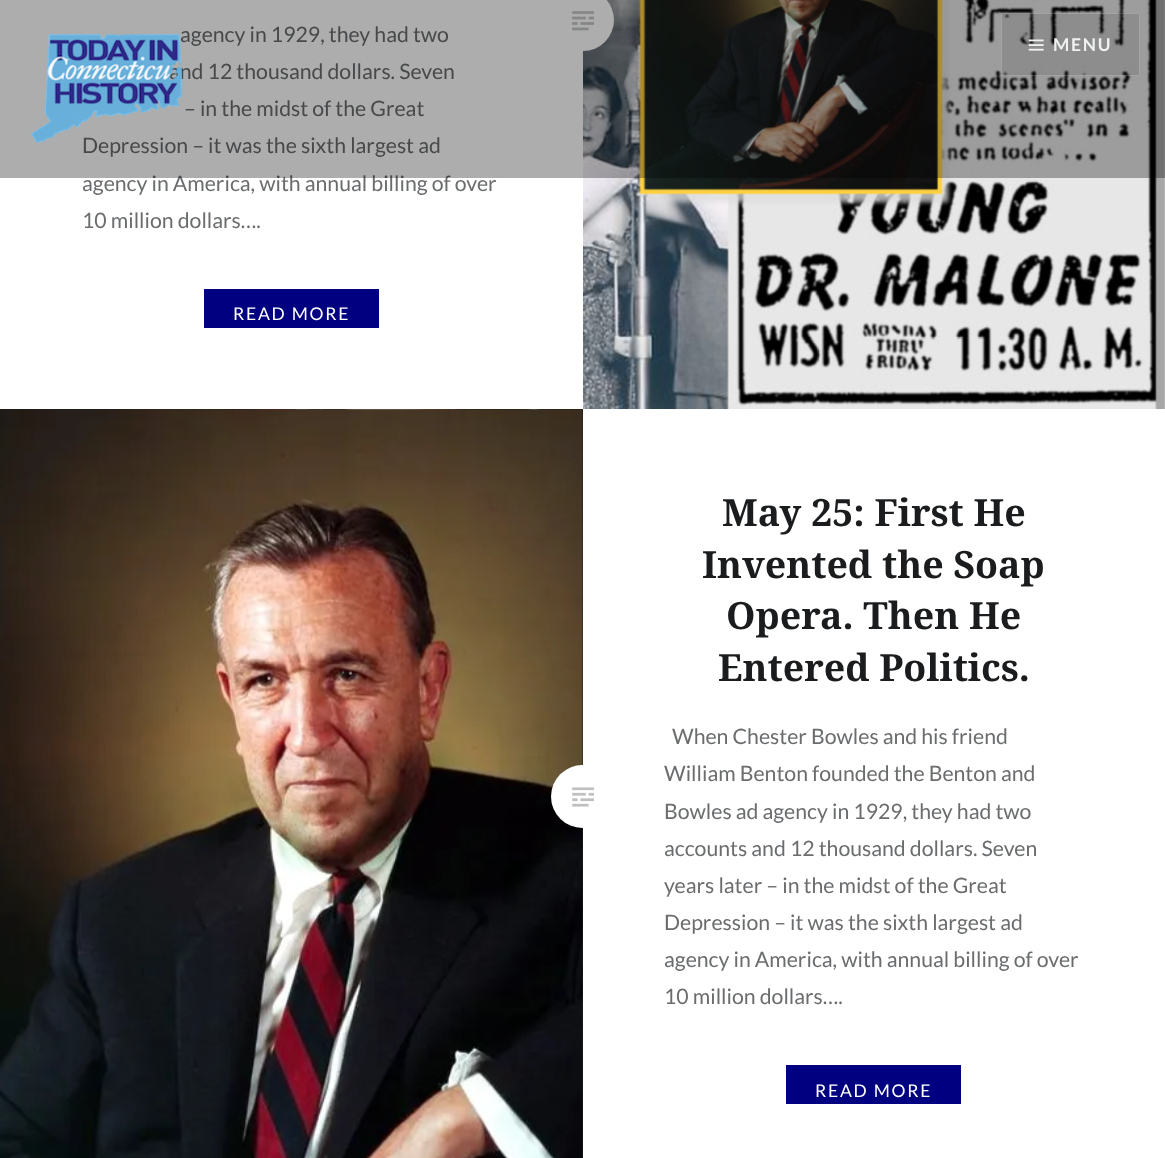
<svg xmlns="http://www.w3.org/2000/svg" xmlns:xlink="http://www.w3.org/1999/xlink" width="1165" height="1158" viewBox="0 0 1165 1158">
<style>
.cls-1{font:21.25px Lato;fill:#6a6c6e}
.cls-2{font:17.5px Lato;letter-spacing:1.75px;fill:#ffffff}
.cls-3{font:bold 37.5px Noto Serif;fill:#1a1c1e}
.cls-4{font:bold 17.5px Lato;letter-spacing:1.75px;fill:#eff0f0}
</style>
<rect width="100%" height="100%" fill="#ffffff"/>
<image xlink:href="image1.png" x="583" y="0" width="582" height="409"/>
<rect fill="#ffffff" x="551" y="-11" width="63" height="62" rx="31"/>
<rect fill="#000080" x="204" y="289" width="175" height="39"/>
<rect fill="#1c1e20" x="582" y="409" width="1" height="749"/>
<image xlink:href="image2.png" x="0" y="409" width="583" height="749"/>
<circle fill="#ffffff" cx="582.5" cy="796.5" r="31.5"/>
<rect fill="#000080" x="786" y="1065" width="175" height="39"/>
<image xlink:href="image3.png" x="572" y="787" width="22" height="20"/>
<text class="cls-1" x="180" y="42">agency in 1929, they had two</text>
<text class="cls-1" x="169" y="79">and 12 thousand dollars. Seven</text>
<text class="cls-1" x="184" y="116">– in the midst of the Great</text>
<text class="cls-1"><tspan x="82" y="153">Depression – it was the sixth largest ad</tspan><tspan x="82" y="191">agency in America, with annual billing of over</tspan><tspan x="82" y="228">10 million dollars….</tspan></text>
<text class="cls-2" x="233" y="320">READ MORE</text>
<text class="cls-3" x="722" y="526">May 25: First He</text>
<text class="cls-3" x="702" y="578">Invented the Soap</text>
<text class="cls-3" x="726" y="629">Opera. Then He</text>
<text class="cls-3" x="718" y="681">Entered Politics.</text>
<text class="cls-1" x="672" y="744">When Chester Bowles and his friend</text>
<text class="cls-1"><tspan x="664" y="781">William Benton founded the Benton and</tspan><tspan x="664" y="819">Bowles ad agency in 1929, they had two</tspan><tspan x="664" y="856">accounts and 12 thousand dollars. Seven</tspan><tspan x="664" y="893">years later – in the midst of the Great</tspan><tspan x="664" y="930">Depression – it was the sixth largest ad</tspan><tspan x="664" y="967">agency in America, with annual billing of over</tspan><tspan x="664" y="1004">10 million dollars….</tspan></text>
<text class="cls-2" x="815" y="1097">READ MORE</text>
<rect fill="#000000" fill-opacity="0.32" x="0" y="0" width="1165" height="178"/>
<image xlink:href="image0.png" x="572" y="11" width="22" height="20"/>
<image xlink:href="image4.png" x="31" y="33" width="152" height="111"/>
<rect fill="#000000" fill-opacity="0.1" x="1001" y="13" width="139" height="63"/>
<rect fill="none" stroke="#ffffff" stroke-opacity="0.2" x="1001.5" y="13.5" width="138" height="62"/>
<image xlink:href="image5.png" x="1028" y="39" width="16" height="12"/>
<text class="cls-4" x="1053" y="51">MENU</text>
</svg>
